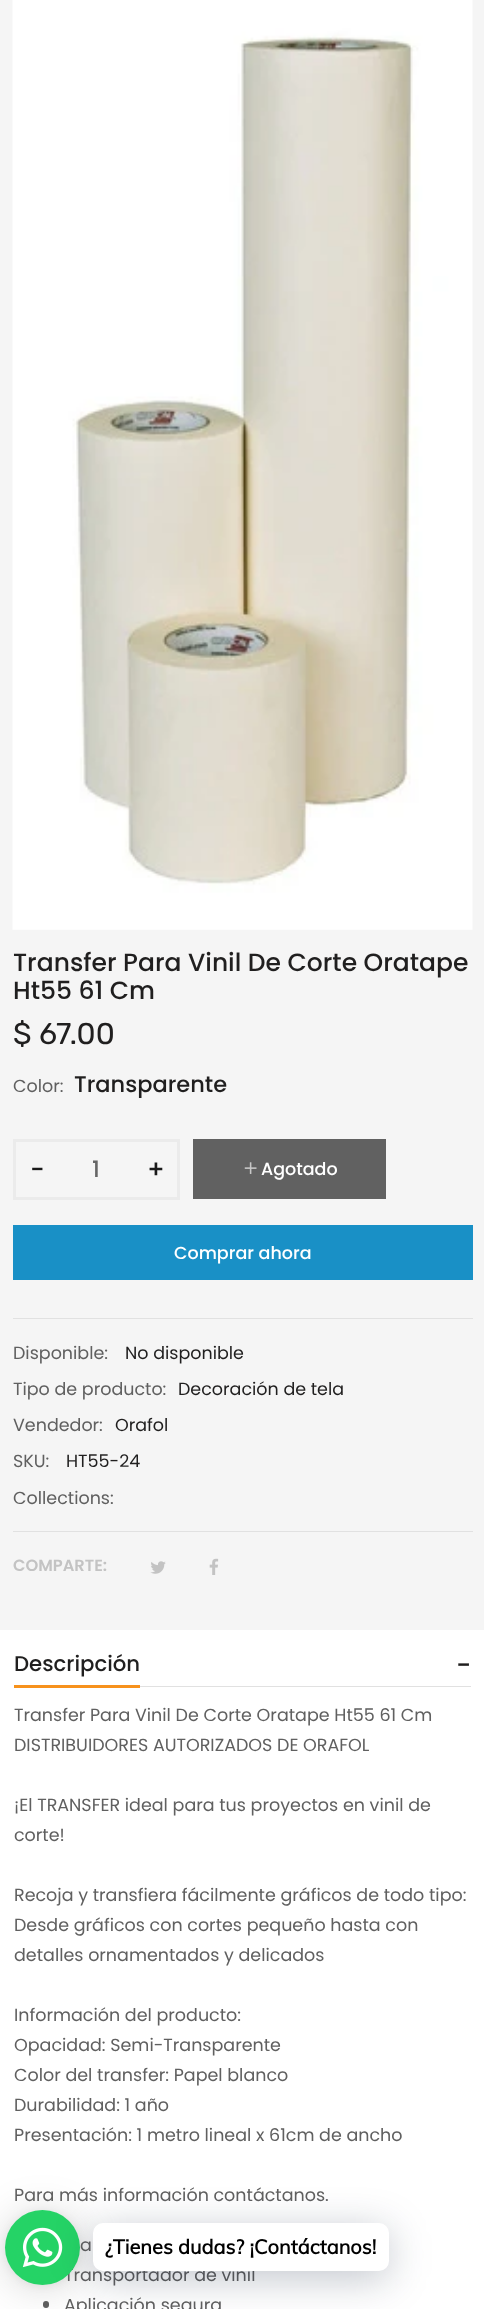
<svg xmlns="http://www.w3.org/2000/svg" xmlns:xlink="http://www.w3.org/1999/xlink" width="484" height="2309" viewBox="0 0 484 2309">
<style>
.cls-1{font:500 25px Poppins;fill:#201f1f}
.cls-2{font:30px Rubik;fill:#201f1f}
.cls-3{font:17.5px Poppins;fill:#606060}
.cls-4{font:500 22.5px Poppins;fill:#201f1f}
.cls-5{font:500 25px Poppins;fill:#1a1a1a}
.cls-6{font:500 22.5px Poppins;fill:#666666}
.cls-7{font:500 17.5px Poppins;fill:#ffffff}
.cls-8{font:17.5px Poppins;fill:#201f1f}
.cls-9{font:600 16.25px Poppins;fill:#c3c3c3}
.cls-10{font:500 21.25px Poppins;fill:#201f1f}
.cls-11{font:500 26px Poppins;fill:#201f1f}
.cls-12{font:bold 20px Muli;fill:#000000}
</style>
<rect width="100%" height="100%" fill="#ffffff"/>
<rect fill="#f5f5f5" x="0" y="0" width="484" height="1630"/>
<image xlink:href="image0.png" x="12" y="0" width="461" height="930"/>
<rect fill="#e1e1e1" x="13" y="1318" width="460" height="1"/>
<rect fill="none" stroke="#ebebeb" stroke-width="3" x="14.5" y="1140.5" width="164" height="58"/>
<rect fill="#616161" x="193" y="1139" width="193" height="60"/>
<image xlink:href="image1.png" x="244" y="1162" width="13" height="12"/>
<rect fill="#1990c6" x="13" y="1225" width="460" height="55"/>
<rect fill="#e1e1e1" x="13" y="1531" width="460" height="1"/>
<image xlink:href="image2.png" x="150" y="1561" width="16" height="13"/>
<image xlink:href="image3.png" x="209" y="1558" width="10" height="17"/>
<rect fill="#e1e1e1" x="140" y="1686" width="331" height="1"/>
<rect fill="#f7921c" x="14" y="1685" width="126" height="3"/>
<rect fill="#606060" x="43" y="2301" width="6" height="7" rx="3"/>
<rect fill="#000000" fill-opacity="0.16" filter="blur(20px)" x="5" y="2213" width="75" height="75" rx="37.5"/>
<rect fill="#000000" fill-opacity="0.06" filter="blur(4px)" x="5" y="2211" width="75" height="75" rx="37.5"/>
<text class="cls-1"><tspan x="13" y="971">Transfer Para Vinil De Corte Oratape</tspan><tspan x="13" y="999">Ht55 61 Cm</tspan></text>
<text class="cls-2" x="13" y="1044">$ 67.00</text>
<text class="cls-3" x="13" y="1092">Color:</text>
<text class="cls-4" x="74" y="1092">Transparente</text>
<text class="cls-5" x="30" y="1178">−</text>
<text class="cls-6" x="92" y="1177">1</text>
<text class="cls-5" x="147" y="1178">+</text>
<text class="cls-7" x="261" y="1175">Agotado</text>
<text class="cls-7" x="174" y="1259">Comprar ahora</text>
<text class="cls-3" x="13" y="1359">Disponible:</text>
<text class="cls-8" x="125" y="1359">No disponible</text>
<text class="cls-3" x="13" y="1395">Tipo de producto:</text>
<text class="cls-8" x="178" y="1395">Decoración de tela</text>
<text class="cls-3" x="13" y="1431">Vendedor:</text>
<text class="cls-8" x="115" y="1431">Orafol</text>
<text class="cls-3" x="13" y="1467">SKU:</text>
<text class="cls-8" x="66" y="1467">HT55-24</text>
<text class="cls-3" x="13" y="1504">Collections:</text>
<text class="cls-9" x="13" y="1571">COMPARTE:</text>
<text class="cls-10" x="14" y="1671">Descripción</text>
<text class="cls-11" x="456" y="1674">-</text>
<text class="cls-3"><tspan x="14" y="1721">Transfer Para Vinil De Corte Oratape Ht55 61 Cm</tspan><tspan x="14" y="1751">DISTRIBUIDORES AUTORIZADOS DE ORAFOL</tspan></text>
<text class="cls-3"><tspan x="14" y="1811">¡El TRANSFER ideal para tus proyectos en vinil de</tspan><tspan x="14" y="1841">corte!</tspan></text>
<text class="cls-3"><tspan x="14" y="1901">Recoja y transfiera fácilmente gráficos de todo tipo:</tspan><tspan x="14" y="1931">Desde gráficos con cortes pequeño hasta con</tspan><tspan x="14" y="1961">detalles ornamentados y delicados</tspan></text>
<text class="cls-3"><tspan x="14" y="2021">Información del producto:</tspan><tspan x="14" y="2051">Opacidad: Semi-Transparente</tspan><tspan x="14" y="2081">Color del transfer: Papel blanco</tspan><tspan x="14" y="2111">Durabilidad: 1 año</tspan><tspan x="14" y="2141">Presentación: 1 metro lineal x 61cm de ancho</tspan></text>
<text class="cls-3" x="14" y="2201">Para más información contáctanos.</text>
<text class="cls-3" x="80" y="2251">a</text>
<text class="cls-3"><tspan x="64" y="2281">Transportador de vinil</tspan><tspan x="64" y="2311">Aplicación segura</tspan></text>
<circle fill="#25d366" cx="42.5" cy="2247.5" r="37.5"/>
<rect fill="#00122e" fill-opacity="0.24" filter="blur(20px)" x="93" y="2230" width="296" height="49" rx="10"/>
<image xlink:href="image4.png" x="22" y="2227" width="41" height="41"/>
<rect fill="#ffffff" x="93" y="2223" width="296" height="48" rx="10"/>
<text class="cls-12" x="105" y="2254">¿Tienes dudas? ¡Contáctanos!</text>
</svg>
